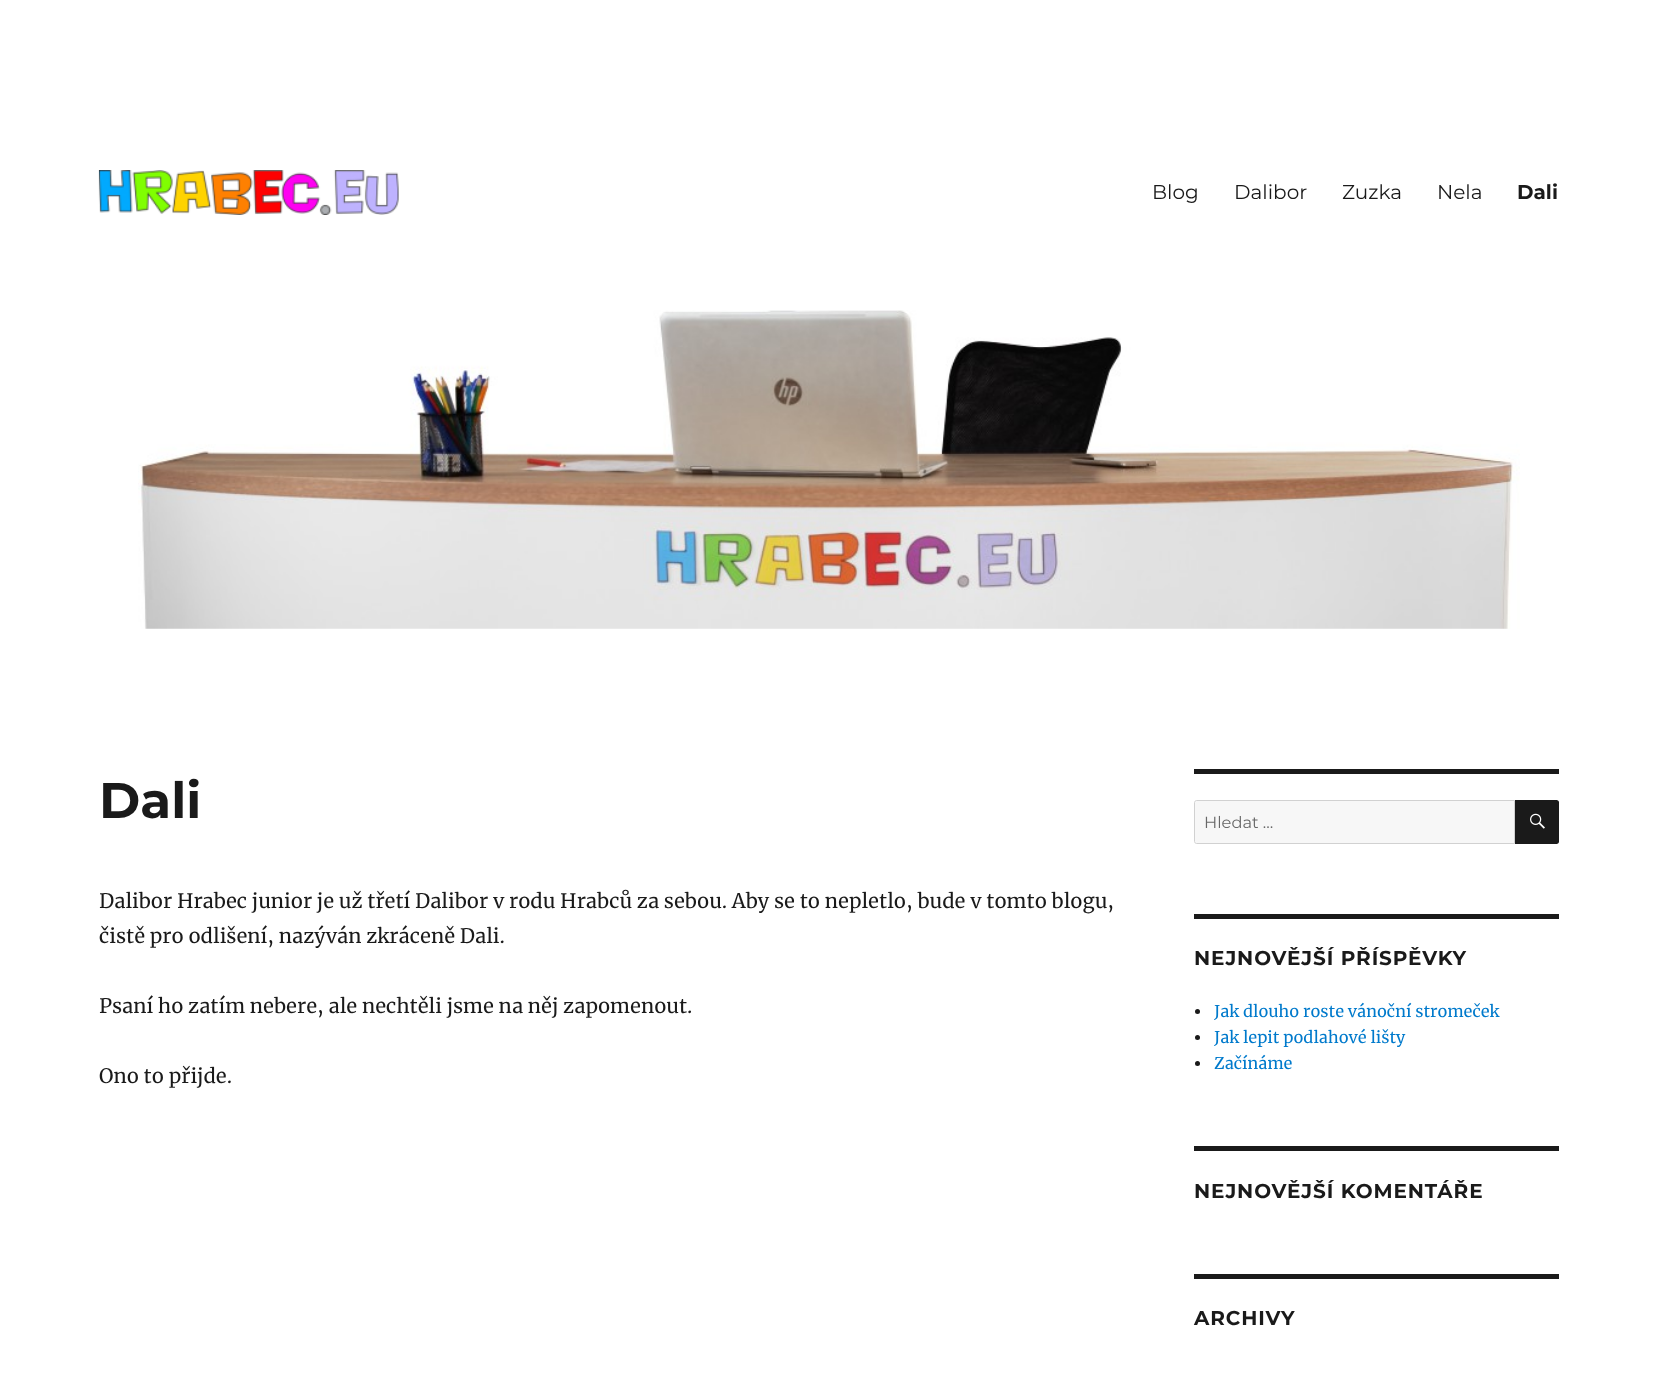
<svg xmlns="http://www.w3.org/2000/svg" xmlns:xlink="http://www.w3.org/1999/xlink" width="1657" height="1380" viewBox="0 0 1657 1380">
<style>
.cls-1{font:20px Montserrat;fill:#1a1a1a}
.cls-2{font:bold 20px Montserrat;fill:#1a1a1a}
.cls-3{font:bold 50px Montserrat;fill:#1a1a1a}
.cls-4{font:20px Merriweather;fill:#1a1a1a}
.cls-5{font:16.25px Montserrat;fill:#686868}
.cls-6{font:bold 20px Montserrat;letter-spacing:0.9px;fill:#1a1a1a}
.cls-7{font:16.25px Merriweather;fill:#007acc}
</style>
<rect width="100%" height="100%" fill="#ffffff"/>
<image xlink:href="image0.png" x="98" y="170" width="301" height="45"/>
<image xlink:href="image1.png" x="138" y="310" width="1382" height="319"/>
<rect fill="#1a1a1a" x="1194" y="769" width="365" height="5"/>
<path fill="#f7f7f7" stroke="#d1d1d1" d="M1196.5 800.5H1514.5V843.5H1196.5C1195.5 843.5 1194.5 842.5 1194.5 841.5V802.5C1194.5 801.5 1195.5 800.5 1196.5 800.5Z"/>
<path fill="#1a1a1a" d="M1515 800H1556.5C1558 800 1559 801 1559 802.5V841.5C1559 843 1558 844 1556.5 844H1515Z"/>
<image xlink:href="image2.png" x="1530" y="813" width="15" height="16"/>
<rect fill="#1a1a1a" x="1194" y="914" width="365" height="5"/>
<circle fill="#1a1a1a" cx="1197.5" cy="1011.5" r="2.5"/>
<circle fill="#1a1a1a" cx="1197.5" cy="1037.5" r="2.5"/>
<circle fill="#1a1a1a" cx="1197.5" cy="1063.5" r="2.5"/>
<rect fill="#1a1a1a" x="1194" y="1146" width="365" height="5"/>
<rect fill="#1a1a1a" x="1194" y="1274" width="365" height="5"/>
<text class="cls-1" x="1152" y="199">Blog</text>
<text class="cls-1" x="1234" y="199">Dalibor</text>
<text class="cls-1" x="1342" y="199">Zuzka</text>
<text class="cls-1" x="1437" y="199">Nela</text>
<text class="cls-2" x="1517" y="199">Dali</text>
<text class="cls-3" x="99" y="818">Dali</text>
<text class="cls-4"><tspan x="99" y="908">Dalibor Hrabec junior je už třetí Dalibor v rodu Hrabců za sebou. Aby se to nepletlo, bude v tomto blogu,</tspan><tspan x="99" y="943">čistě pro odlišení, nazýván zkráceně Dali.</tspan></text>
<text class="cls-4" x="99" y="1013">Psaní ho zatím nebere, ale nechtěli jsme na něj zapomenout.</text>
<text class="cls-4" x="99" y="1083">Ono to přijde.</text>
<text class="cls-5" x="1204" y="828">Hledat …</text>
<text class="cls-6" x="1194" y="965">NEJNOVĚJŠÍ PŘÍSPĚVKY</text>
<text class="cls-7"><tspan x="1214" y="1017">Jak dlouho roste vánoční stromeček</tspan><tspan x="1214" y="1043">Jak lepit podlahové lišty</tspan><tspan x="1214" y="1069">Začínáme</tspan></text>
<text class="cls-6" x="1194" y="1198">NEJNOVĚJŠÍ KOMENTÁŘE</text>
<text class="cls-6" x="1194" y="1325">ARCHIVY</text>
</svg>
